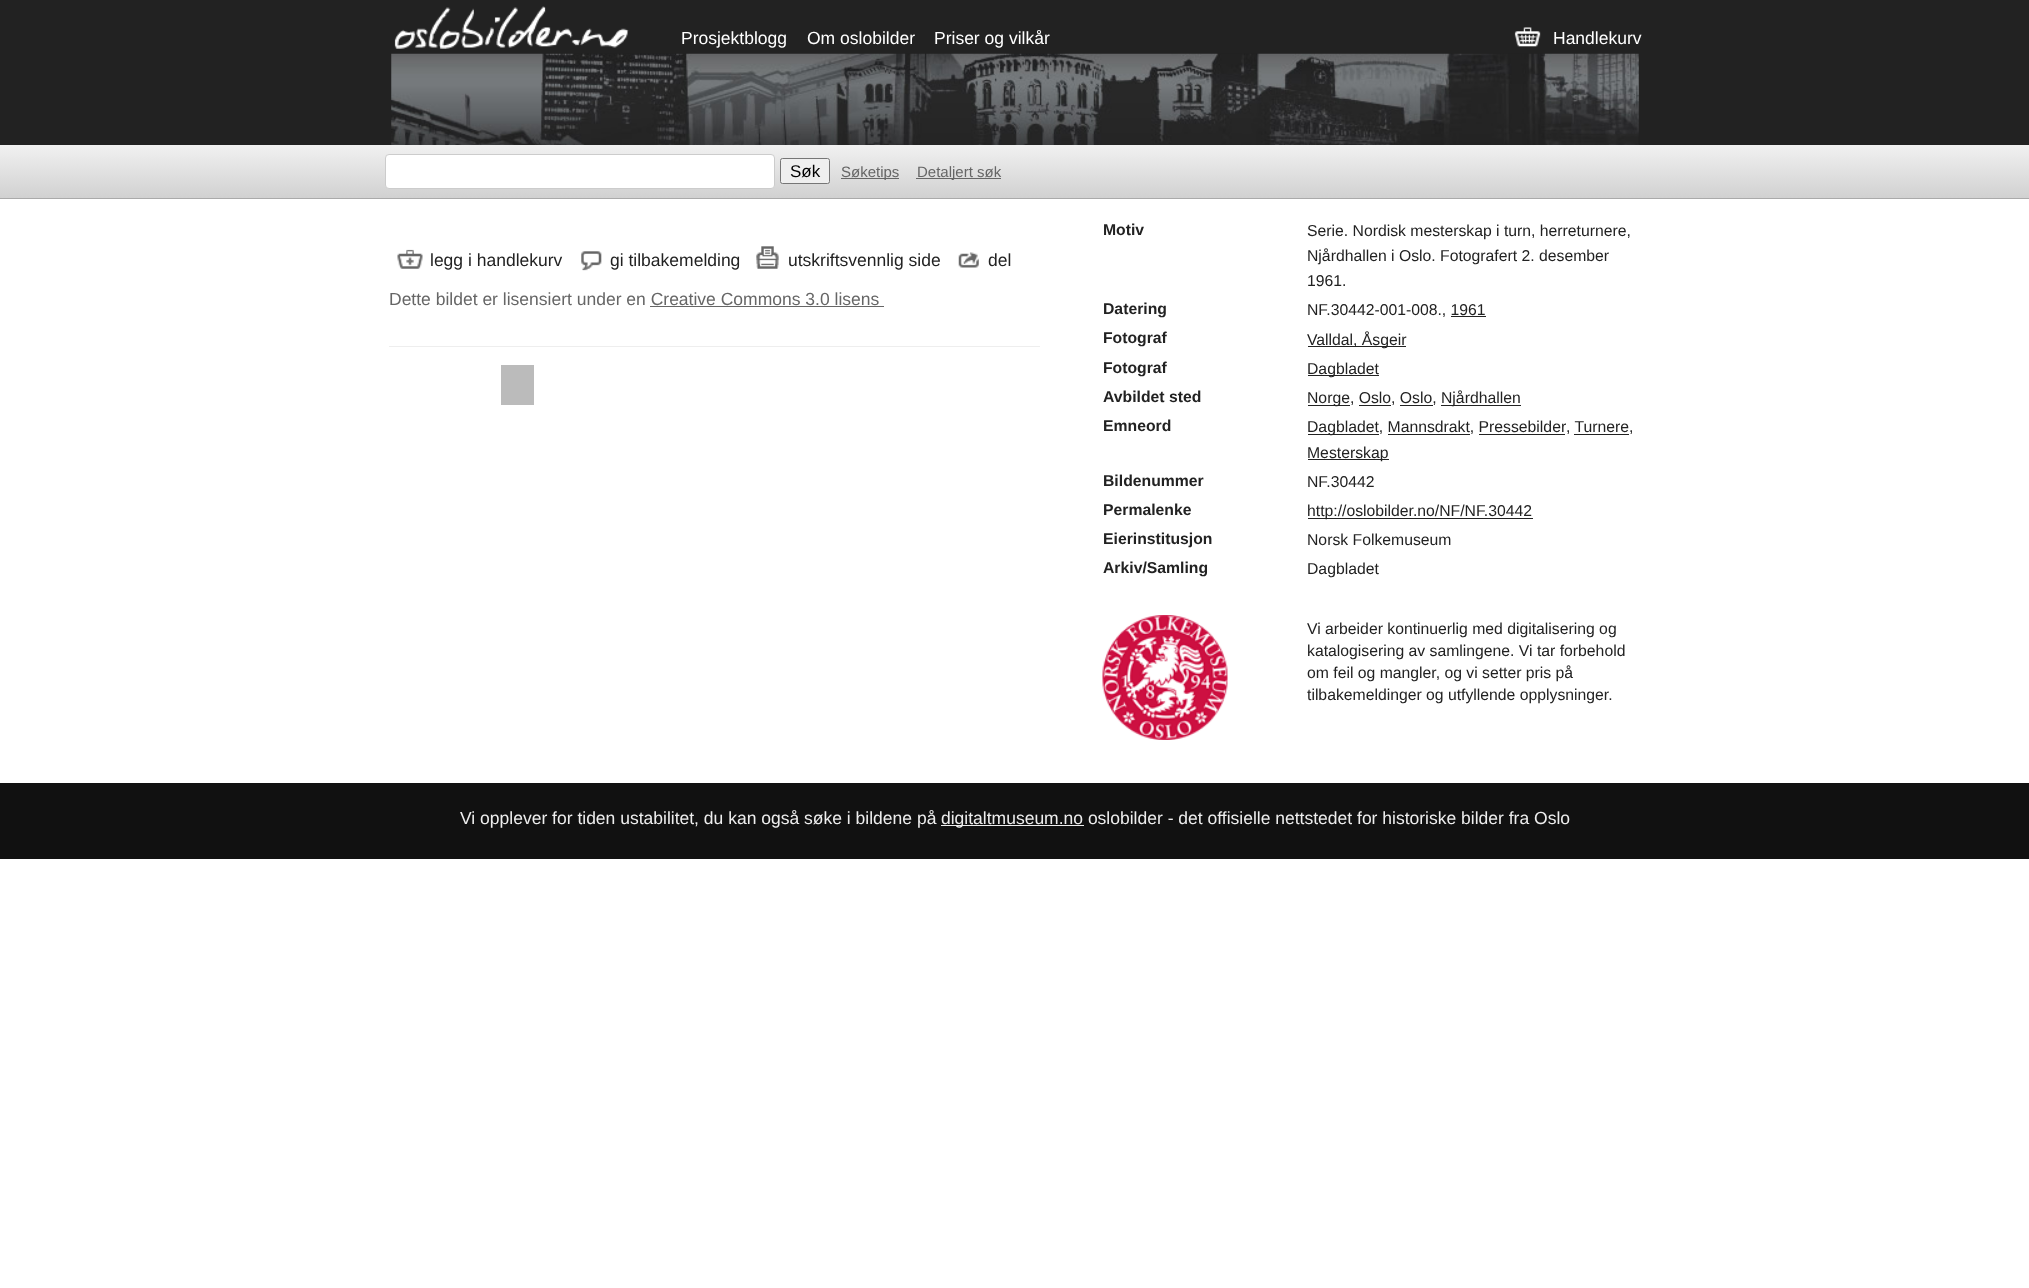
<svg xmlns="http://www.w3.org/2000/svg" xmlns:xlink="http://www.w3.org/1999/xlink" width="2029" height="1288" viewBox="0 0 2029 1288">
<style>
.cls-1{font:17.5px Liberation Sans;fill:#ffffff}
.cls-2{font:17px Liberation Sans;fill:#000000}
.cls-3{font:15px Liberation Sans;fill:#666666}
.cls-4{font:17.5px Liberation Sans;fill:#222222}
.cls-5{font:17.5px Liberation Sans;fill:#666666}
.cls-6{font:bold 15.75px Liberation Sans;fill:#222222}
.cls-7{font:15.75px Liberation Sans;fill:#222222}
.cls-8{font:17.5px Liberation Sans;fill:#eeeeee}
</style>
<defs>
<linearGradient id="g1" gradientUnits="userSpaceOnUse" x1="1015" y1="145" x2="1015" y2="198"><stop offset="0" stop-color="#f1f1f1"/><stop offset="1" stop-color="#d1d1d1"/></linearGradient>
</defs>
<rect width="100%" height="100%" fill="#ffffff"/>
<rect fill="#222222" x="0" y="0" width="2029" height="145"/>
<image xlink:href="image0.png" x="391" y="53" width="1248" height="92"/>
<image xlink:href="image1.png" x="394" y="6" width="235" height="43"/>
<image xlink:href="image2.png" x="1514" y="27" width="27" height="20"/>
<rect fill="url(#g1)" x="0" y="145" width="2029" height="53"/>
<rect fill="#aaaaaa" x="0" y="198" width="2029" height="1"/>
<rect fill="#ffffff" stroke="#cccccc" x="385.5" y="154.5" width="389" height="34" rx="3.5"/>
<rect fill="#efefef" stroke="#767676" x="780.5" y="158.5" width="49" height="25" rx="2"/>
<rect fill="#666666" x="841" y="178" width="58" height="1"/>
<rect fill="#666666" x="916" y="178" width="85" height="1"/>
<image xlink:href="image3.png" x="397" y="249" width="26" height="20"/>
<image xlink:href="image4.png" x="581" y="251" width="21" height="20"/>
<image xlink:href="image5.png" x="756" y="246" width="23" height="23"/>
<image xlink:href="image6.png" x="958" y="252" width="21" height="16"/>
<rect fill="#666666" x="650" y="306" width="234" height="1"/>
<rect fill="#eeeeee" x="389" y="346" width="651" height="1"/>
<rect fill="#bbbbbb" x="501" y="365" width="33" height="40"/>
<rect fill="#222222" x="1451" y="316" width="35" height="1"/>
<rect fill="#222222" x="1308" y="346" width="98" height="1"/>
<rect fill="#222222" x="1308" y="375" width="71" height="1"/>
<rect fill="#222222" x="1308" y="405" width="42" height="1"/>
<rect fill="#222222" x="1441" y="405" width="80" height="1"/>
<rect fill="#222222" x="1359" y="405" width="32" height="1"/>
<rect fill="#222222" x="1400" y="405" width="33" height="1"/>
<rect fill="#222222" x="1308" y="434" width="71" height="1"/>
<rect fill="#222222" x="1388" y="434" width="82" height="1"/>
<rect fill="#222222" x="1479" y="434" width="86" height="1"/>
<rect fill="#222222" x="1574" y="434" width="55" height="1"/>
<rect fill="#222222" x="1308" y="459" width="81" height="1"/>
<rect fill="#222222" x="1308" y="518" width="225" height="1"/>
<image xlink:href="image7.png" x="1102" y="615" width="126" height="125"/>
<rect fill="#111111" x="0" y="783" width="2029" height="76"/>
<rect fill="#eeeeee" x="941" y="825" width="143" height="1"/>
<text class="cls-1" x="681" y="44">Prosjektblogg</text>
<text class="cls-1" x="807" y="44">Om oslobilder</text>
<text class="cls-1" x="934" y="44">Priser og vilkår</text>
<text class="cls-1" x="1553" y="44">Handlekurv</text>
<text class="cls-2" x="790" y="177">Søk</text>
<text class="cls-3" x="841" y="177">Søketips</text>
<text class="cls-3" x="917" y="177">Detaljert søk</text>
<text class="cls-4" x="430" y="266">legg i handlekurv</text>
<text class="cls-4" x="610" y="266">gi tilbakemelding</text>
<text class="cls-4" x="788" y="266">utskriftsvennlig side</text>
<text class="cls-4" x="988" y="266">del</text>
<text class="cls-5" x="389" y="305">Dette bildet er lisensiert under en Creative Commons 3.0 lisens</text>
<text class="cls-6" x="1103" y="235">Motiv</text>
<text class="cls-7"><tspan x="1307" y="236">Serie. Nordisk mesterskap i turn, herreturnere,</tspan><tspan x="1307" y="261">Njårdhallen i Oslo. Fotografert 2. desember</tspan><tspan x="1307" y="286">1961.</tspan></text>
<text class="cls-6" x="1103" y="314">Datering</text>
<text class="cls-7" x="1307" y="315">NF.30442-001-008., 1961</text>
<text class="cls-6" x="1103" y="343">Fotograf</text>
<text class="cls-7" x="1307" y="345">Valldal, Åsgeir</text>
<text class="cls-6" x="1103" y="373">Fotograf</text>
<text class="cls-7" x="1307" y="374">Dagbladet</text>
<text class="cls-6" x="1103" y="402">Avbildet sted</text>
<text class="cls-7" x="1307" y="403">Norge, Oslo, Oslo,</text>
<text class="cls-7" x="1441" y="403">Njårdhallen</text>
<text class="cls-6" x="1103" y="431">Emneord</text>
<text class="cls-7" x="1307" y="432">Dagbladet, Mannsdrakt, Pressebilder</text>
<text class="cls-7" x="1566" y="432">, Turnere,</text>
<text class="cls-7" x="1307" y="458">Mesterskap</text>
<text class="cls-6" x="1103" y="486">Bildenummer</text>
<text class="cls-7" x="1307" y="487">NF.30442</text>
<text class="cls-6" x="1103" y="515">Permalenke</text>
<text class="cls-7" x="1307" y="516">http://oslobilder.no/NF/NF.30442</text>
<text class="cls-6" x="1103" y="544">Eierinstitusjon</text>
<text class="cls-7" x="1307" y="545">Norsk Folkemuseum</text>
<text class="cls-6" x="1103" y="573">Arkiv/Samling</text>
<text class="cls-7" x="1307" y="574">Dagbladet</text>
<text class="cls-7"><tspan x="1307" y="634">Vi arbeider kontinuerlig med digitalisering og</tspan><tspan x="1307" y="656">katalogisering av samlingene. Vi tar forbehold</tspan><tspan x="1307" y="678">om feil og mangler, og vi setter pris på</tspan><tspan x="1307" y="700">tilbakemeldinger og utfyllende opplysninger.</tspan></text>
<text class="cls-8" x="460" y="824">Vi opplever for tiden ustabilitet, du kan også søke i bildene på</text>
<text class="cls-8" x="941" y="824">digitaltmuseum.no oslobilder - det offisielle nettstedet for historiske bilder fra Oslo</text>
</svg>
